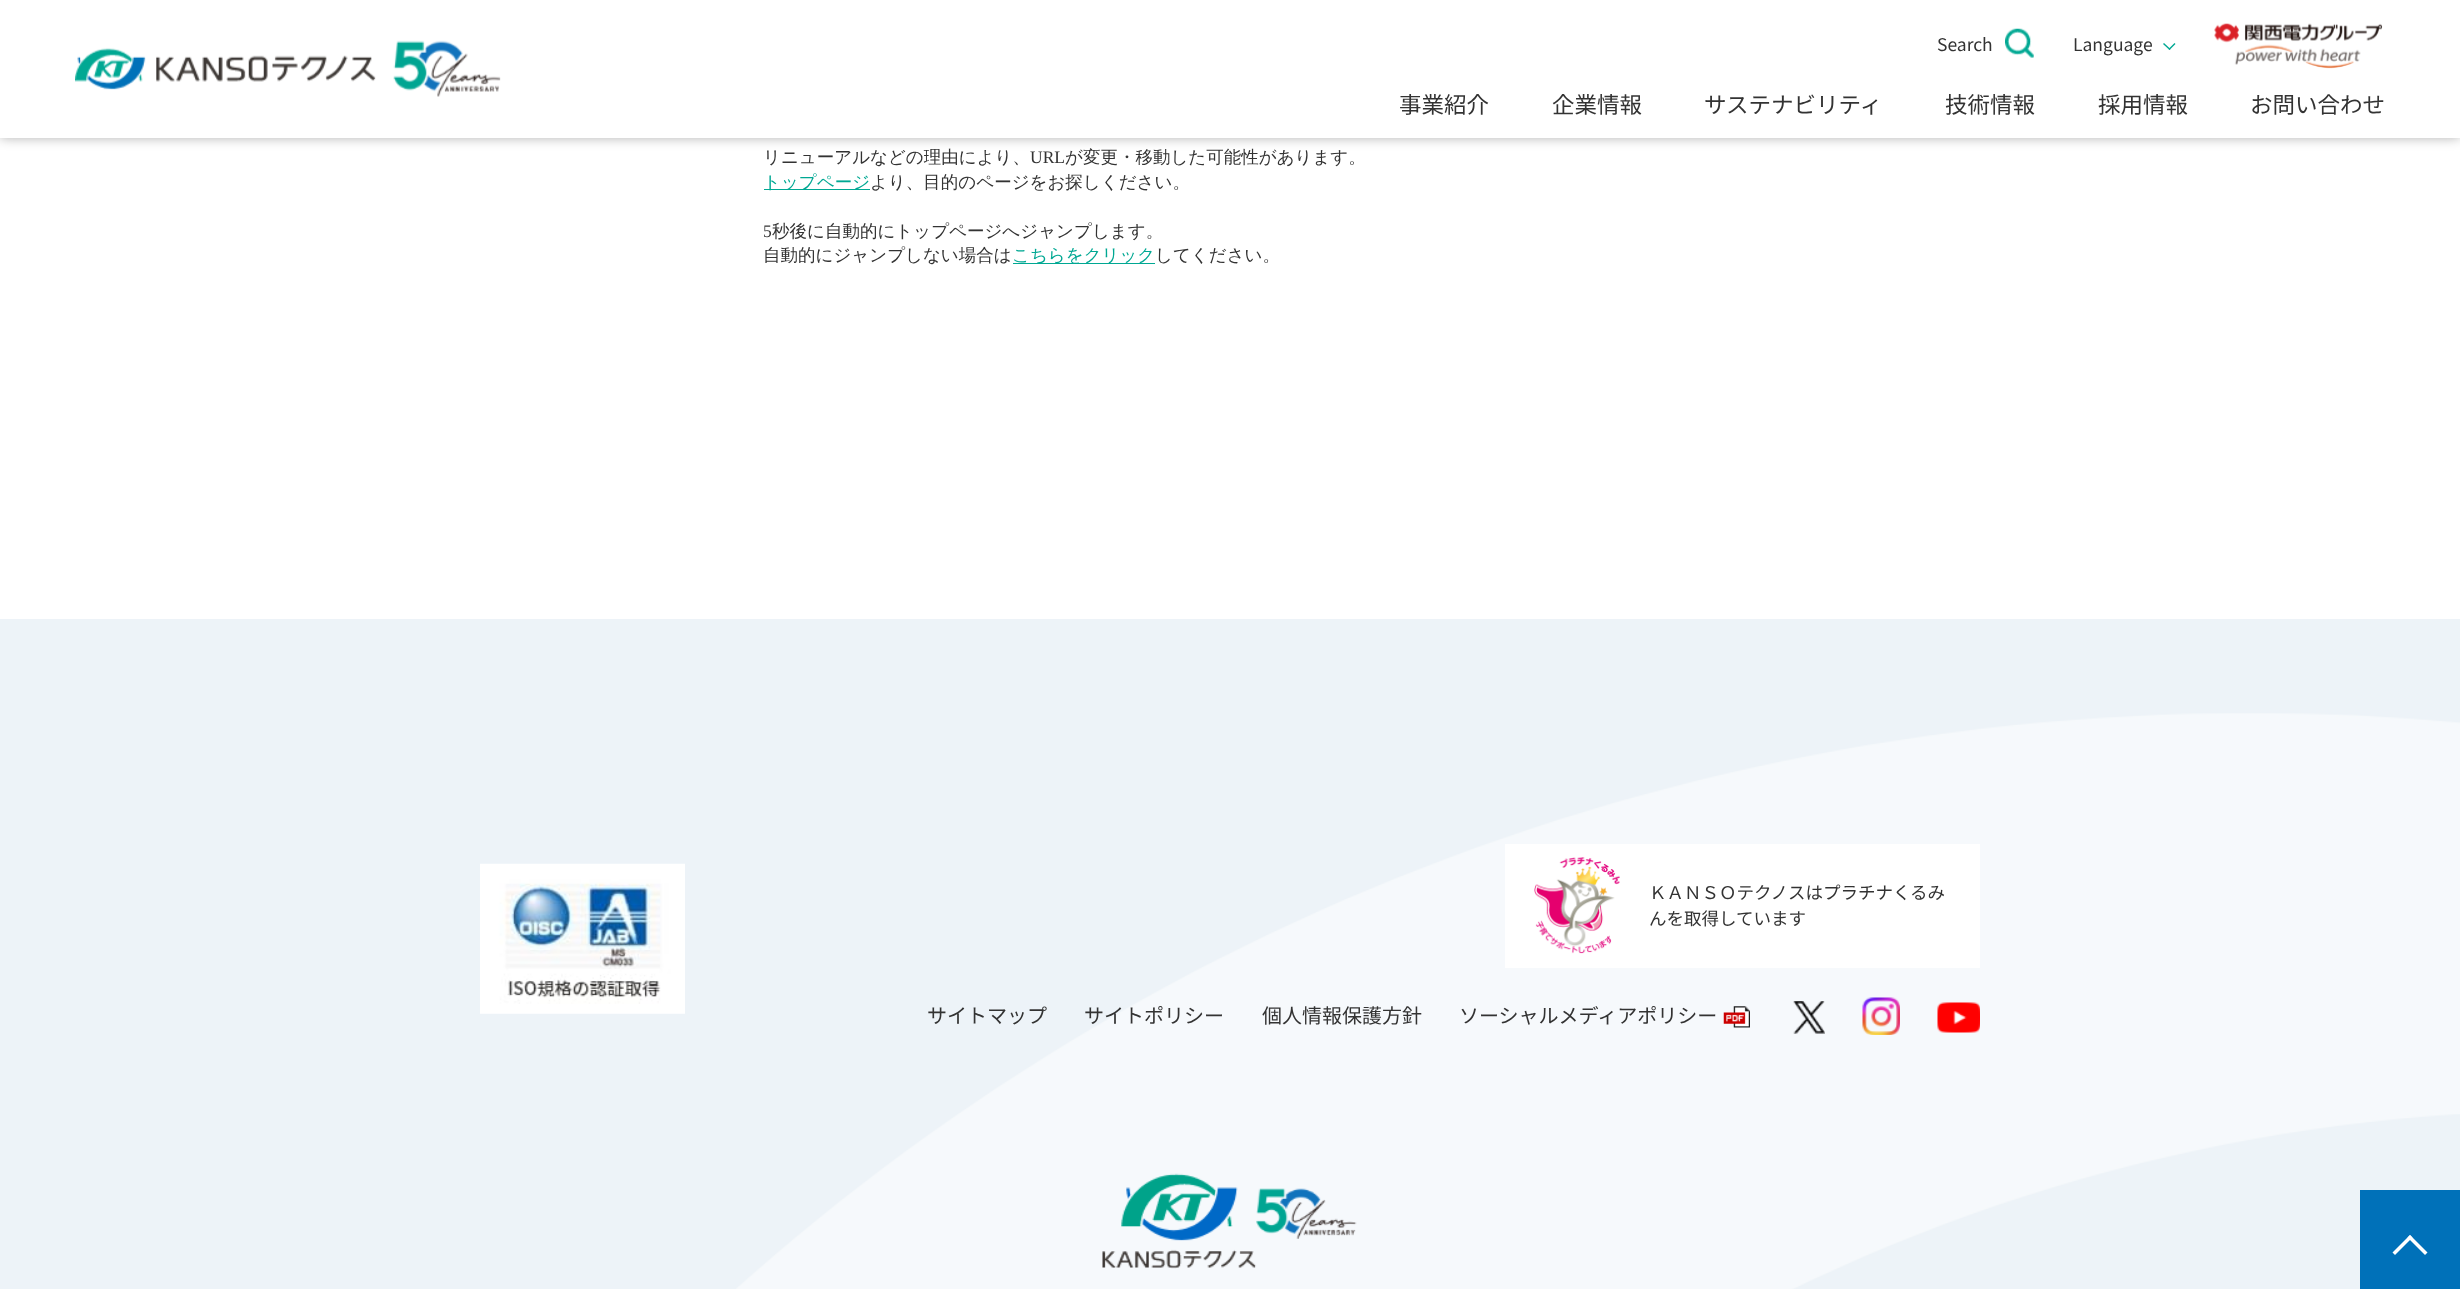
<svg xmlns="http://www.w3.org/2000/svg" xmlns:xlink="http://www.w3.org/1999/xlink" width="2460" height="1289" viewBox="0 0 2460 1289">
<style>
.cls-1{font:17.5px Noto Sans JP;fill:#333333}
.cls-2{font:22.5px Noto Sans JP;fill:#333333}
.cls-3{font:500 17.5px WenQuanYi Zen Hei;fill:#333333}
.cls-4{font:17.5px Liberation Serif;fill:#333333}
.cls-5{font:500 17.5px WenQuanYi Zen Hei;fill:#00a893}
.cls-6{font:20px Noto Sans JP;fill:#333333}
</style>
<rect width="100%" height="100%" fill="#ffffff"/>
<rect fill="#000000" fill-opacity="0.3" filter="blur(6px)" x="0" y="0" width="2460" height="138"/>
<rect fill="#ffffff" x="0" y="0" width="2460" height="138"/>
<image xlink:href="image0.png" x="75" y="40" width="426" height="57"/>
<image xlink:href="image1.png" x="2005" y="28" width="29" height="30"/>
<path fill="#00a893" d="M2174.5 43L2175.5 44L2169.5 50L2168.5 49Z"/>
<path fill="#00a893" d="M2164 43L2170.5 49L2169.5 50L2163 44Z"/>
<image xlink:href="image2.png" x="2214" y="23" width="169" height="46"/>
<rect fill="#00a893" x="764" y="189" width="106" height="1"/>
<rect fill="#00a893" x="1013" y="263" width="142" height="1"/>
<rect fill="#edf3f8" x="0" y="619" width="2460" height="670"/>
<image xlink:href="image3.png" x="736" y="713" width="1724" height="576"/>
<image xlink:href="image4.png" x="480" y="863" width="205" height="151"/>
<rect fill="#ffffff" x="1505" y="844" width="475" height="124"/>
<image xlink:href="image5.png" x="1534" y="857" width="86" height="97"/>
<image xlink:href="image6.png" x="1723" y="1006" width="27" height="22"/>
<image xlink:href="image7.png" x="1793" y="1001" width="32" height="33"/>
<image xlink:href="image8.png" x="1862" y="997" width="38" height="38"/>
<image xlink:href="image9.png" x="1937" y="1002" width="43" height="31"/>
<image xlink:href="image10.png" x="1102" y="1173" width="255" height="96"/>
<rect fill="#0071b9" x="2360" y="1190" width="100" height="99"/>
<path fill="#ffffff" d="M2410 1235L2427.5 1252.5L2425 1255L2407.5 1237.5Z"/>
<path fill="#ffffff" d="M2410 1235L2412.5 1237.5L2395 1255L2392.5 1252.5Z"/>
<text class="cls-1" x="1937" y="51">Search</text>
<text class="cls-1" x="2073" y="51">Language</text>
<text class="cls-2" x="1399" y="113">事業紹介</text>
<text class="cls-2" x="1552" y="113">企業情報</text>
<text class="cls-2" x="1704" y="113">サステナビリティ</text>
<text class="cls-2" x="1945" y="113">技術情報</text>
<text class="cls-2" x="2098" y="113">採用情報</text>
<text class="cls-2" x="2250" y="113">お問い合わせ</text>
<text class="cls-3" x="763" y="163">リニューアルなどの理由により、</text>
<text class="cls-4" x="1030" y="163">URL</text>
<text class="cls-3" x="1065" y="163">が変更・移動した可能性があります。</text>
<text class="cls-5" x="763" y="188">トップページ</text>
<text class="cls-3" x="870" y="188">より、目的のページをお探しください。</text>
<text class="cls-4" x="763" y="237">5</text>
<text class="cls-3" x="772" y="237">秒後に自動的にトップページへジャンプします。</text>
<text class="cls-3" x="763" y="261">自動的にジャンプしない場合は</text>
<text class="cls-5" x="1012" y="261">こちらをクリック</text>
<text class="cls-3" x="1155" y="261">してください。</text>
<text class="cls-1"><tspan x="1649" y="899">ＫＡＮＳＯテクノスはプラチナくるみ</tspan><tspan x="1649" y="925">んを取得しています</tspan></text>
<text class="cls-6" x="927" y="1023">サイトマップ</text>
<text class="cls-6" x="1084" y="1023">サイトポリシー</text>
<text class="cls-6" x="1262" y="1023">個人情報保護方針</text>
<text class="cls-6" x="1459" y="1023">ソーシャルメディアポリシー</text>
</svg>
